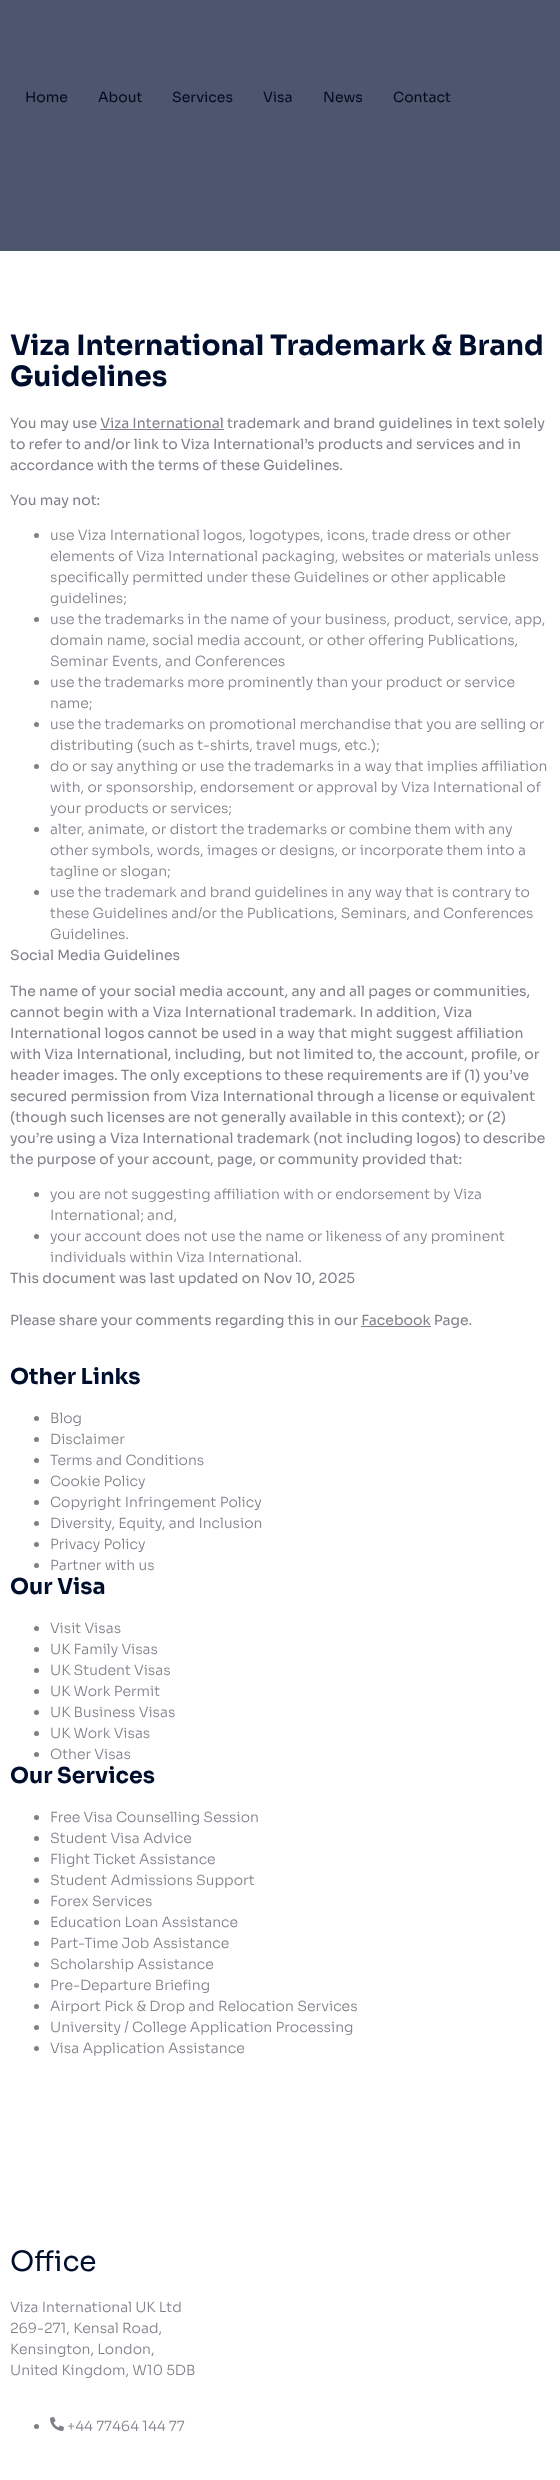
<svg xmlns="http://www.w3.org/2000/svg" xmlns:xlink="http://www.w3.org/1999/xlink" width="560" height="2480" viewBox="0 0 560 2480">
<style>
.cls-1{font:14px Sora;fill:#000a1f}
.cls-2{font:bold 28px Sora;fill:#000e2d}
.cls-3{font:14px Sora;fill:#7f8088}
.cls-4{font:300 14px Sora;fill:#7f8088}
.cls-5{font:bold 22px Sora;fill:#000e2d}
.cls-6{font:28px Sora;fill:#000e2d}
</style>
<rect width="100%" height="100%" fill="#ffffff"/>
<rect fill="#4d566c" x="0" y="0" width="560" height="251"/>
<rect fill="#7f8088" x="100" y="429" width="124" height="1"/>
<circle fill="#7f8088" cx="36.5" cy="535.5" r="2.5"/>
<circle fill="#7f8088" cx="36.5" cy="619.5" r="2.5"/>
<circle fill="#7f8088" cx="36.5" cy="682.5" r="2.5"/>
<circle fill="#7f8088" cx="36.5" cy="724.5" r="2.5"/>
<circle fill="#7f8088" cx="36.5" cy="766.5" r="2.5"/>
<circle fill="#7f8088" cx="36.5" cy="829.5" r="2.5"/>
<circle fill="#7f8088" cx="36.5" cy="892.5" r="2.5"/>
<circle fill="#7f8088" cx="36.5" cy="1194.5" r="2.5"/>
<circle fill="#7f8088" cx="36.5" cy="1236.5" r="2.5"/>
<rect fill="#7f8088" x="361" y="1326" width="70" height="1"/>
<circle fill="#7f8088" cx="36.5" cy="1418.5" r="2.5"/>
<circle fill="#7f8088" cx="36.5" cy="1439.5" r="2.5"/>
<circle fill="#7f8088" cx="36.5" cy="1460.5" r="2.5"/>
<circle fill="#7f8088" cx="36.5" cy="1481.5" r="2.5"/>
<circle fill="#7f8088" cx="36.5" cy="1502.5" r="2.5"/>
<circle fill="#7f8088" cx="36.5" cy="1523.5" r="2.5"/>
<circle fill="#7f8088" cx="36.5" cy="1544.5" r="2.5"/>
<circle fill="#7f8088" cx="36.5" cy="1565.5" r="2.5"/>
<circle fill="#7f8088" cx="36.5" cy="1628.5" r="2.5"/>
<circle fill="#7f8088" cx="36.5" cy="1649.5" r="2.5"/>
<circle fill="#7f8088" cx="36.5" cy="1670.5" r="2.5"/>
<circle fill="#7f8088" cx="36.5" cy="1691.5" r="2.5"/>
<circle fill="#7f8088" cx="36.5" cy="1712.5" r="2.5"/>
<circle fill="#7f8088" cx="36.5" cy="1733.5" r="2.5"/>
<circle fill="#7f8088" cx="36.5" cy="1754.5" r="2.5"/>
<circle fill="#7f8088" cx="36.5" cy="1817.5" r="2.5"/>
<circle fill="#7f8088" cx="36.5" cy="1838.5" r="2.5"/>
<circle fill="#7f8088" cx="36.5" cy="1859.5" r="2.5"/>
<circle fill="#7f8088" cx="36.5" cy="1880.5" r="2.5"/>
<circle fill="#7f8088" cx="36.5" cy="1901.5" r="2.5"/>
<circle fill="#7f8088" cx="36.5" cy="1922.5" r="2.5"/>
<circle fill="#7f8088" cx="36.5" cy="1943.5" r="2.5"/>
<circle fill="#7f8088" cx="36.5" cy="1964.5" r="2.5"/>
<circle fill="#7f8088" cx="36.5" cy="1985.5" r="2.5"/>
<circle fill="#7f8088" cx="36.5" cy="2006.5" r="2.5"/>
<circle fill="#7f8088" cx="36.5" cy="2027.5" r="2.5"/>
<circle fill="#7f8088" cx="36.5" cy="2048.5" r="2.5"/>
<circle fill="#7f8088" cx="36.5" cy="2426.5" r="2.5"/>
<image xlink:href="image0.png" x="50" y="2417" width="14" height="14"/>
<text class="cls-1" x="25" y="102">Home</text>
<text class="cls-1" x="98" y="102">About</text>
<text class="cls-1" x="172" y="102">Services</text>
<text class="cls-1" x="263" y="102">Visa</text>
<text class="cls-1" x="323" y="102">News</text>
<text class="cls-1" x="393" y="102">Contact</text>
<text class="cls-2"><tspan x="10" y="355">Viza International Trademark &amp; Brand</tspan><tspan x="10" y="386">Guidelines</tspan></text>
<text class="cls-3"><tspan x="10" y="428">You may use Viza International trademark and brand guidelines in text solely</tspan><tspan x="10" y="449">to refer to and/or link to Viza International’s products and services and in</tspan><tspan x="10" y="470">accordance with the terms of these Guidelines.</tspan></text>
<text class="cls-3" x="10" y="505">You may not:</text>
<text class="cls-4"><tspan x="50" y="540">use Viza International logos, logotypes, icons, trade dress or other</tspan><tspan x="50" y="561">elements of Viza International packaging, websites or materials unless</tspan><tspan x="50" y="582">specifically permitted under these Guidelines or other applicable</tspan><tspan x="50" y="603">guidelines;</tspan><tspan x="50" y="624">use the trademarks in the name of your business, product, service, app,</tspan><tspan x="50" y="645">domain name, social media account, or other offering Publications,</tspan><tspan x="50" y="666">Seminar Events, and Conferences</tspan><tspan x="50" y="687">use the trademarks more prominently than your product or service</tspan><tspan x="50" y="708">name;</tspan><tspan x="50" y="729">use the trademarks on promotional merchandise that you are selling or</tspan><tspan x="50" y="750">distributing (such as t-shirts, travel mugs, etc.);</tspan><tspan x="50" y="771">do or say anything or use the trademarks in a way that implies affiliation</tspan><tspan x="50" y="792">with, or sponsorship, endorsement or approval by Viza International of</tspan><tspan x="50" y="813">your products or services;</tspan><tspan x="50" y="834">alter, animate, or distort the trademarks or combine them with any</tspan><tspan x="50" y="855">other symbols, words, images or designs, or incorporate them into a</tspan><tspan x="50" y="876">tagline or slogan;</tspan><tspan x="50" y="897">use the trademark and brand guidelines in any way that is contrary to</tspan><tspan x="50" y="918">these Guidelines and/or the Publications, Seminars, and Conferences</tspan><tspan x="50" y="939">Guidelines.</tspan></text>
<text class="cls-3" x="10" y="960">Social Media Guidelines</text>
<text class="cls-3"><tspan x="10" y="996">The name of your social media account, any and all pages or communities,</tspan><tspan x="10" y="1017">cannot begin with a Viza International trademark. In addition, Viza</tspan><tspan x="10" y="1038">International logos cannot be used in a way that might suggest affiliation</tspan><tspan x="10" y="1059">with Viza International, including, but not limited to, the account, profile, or</tspan><tspan x="10" y="1080">header images. The only exceptions to these requirements are if (1) you’ve</tspan><tspan x="10" y="1101">secured permission from Viza International through a license or equivalent</tspan><tspan x="10" y="1122">(though such licenses are not generally available in this context); or (2)</tspan><tspan x="10" y="1143">you’re using a Viza International trademark (not including logos) to describe</tspan><tspan x="10" y="1164">the purpose of your account, page, or community provided that:</tspan></text>
<text class="cls-4"><tspan x="50" y="1199">you are not suggesting affiliation with or endorsement by Viza</tspan><tspan x="50" y="1220">International; and,</tspan><tspan x="50" y="1241">your account does not use the name or likeness of any prominent</tspan><tspan x="50" y="1262">individuals within Viza International.</tspan></text>
<text class="cls-3" x="10" y="1283">This document was last updated on Nov 10, 2025</text>
<text class="cls-3" x="10" y="1325">Please share your comments regarding this in our Facebook Page.</text>
<text class="cls-5" x="10" y="1384">Other Links</text>
<text class="cls-4"><tspan x="50" y="1423">Blog</tspan><tspan x="50" y="1444">Disclaimer</tspan><tspan x="50" y="1465">Terms and Conditions</tspan><tspan x="50" y="1486">Cookie Policy</tspan><tspan x="50" y="1507">Copyright Infringement Policy</tspan><tspan x="50" y="1528">Diversity, Equity, and Inclusion</tspan><tspan x="50" y="1549">Privacy Policy</tspan><tspan x="50" y="1570">Partner with us</tspan></text>
<text class="cls-5" x="10" y="1594">Our Visa</text>
<text class="cls-4"><tspan x="50" y="1633">Visit Visas</tspan><tspan x="50" y="1654">UK Family Visas</tspan><tspan x="50" y="1675">UK Student Visas</tspan><tspan x="50" y="1696">UK Work Permit</tspan><tspan x="50" y="1717">UK Business Visas</tspan><tspan x="50" y="1738">UK Work Visas</tspan><tspan x="50" y="1759">Other Visas</tspan></text>
<text class="cls-5" x="10" y="1783">Our Services</text>
<text class="cls-4"><tspan x="50" y="1822">Free Visa Counselling Session</tspan><tspan x="50" y="1843">Student Visa Advice</tspan><tspan x="50" y="1864">Flight Ticket Assistance</tspan><tspan x="50" y="1885">Student Admissions Support</tspan><tspan x="50" y="1906">Forex Services</tspan><tspan x="50" y="1927">Education Loan Assistance</tspan><tspan x="50" y="1948">Part-Time Job Assistance</tspan><tspan x="50" y="1969">Scholarship Assistance</tspan><tspan x="50" y="1990">Pre-Departure Briefing</tspan><tspan x="50" y="2011">Airport Pick &amp; Drop and Relocation Services</tspan><tspan x="50" y="2032">University / College Application Processing</tspan><tspan x="50" y="2053">Visa Application Assistance</tspan></text>
<text class="cls-6" x="10" y="2271">Office</text>
<text class="cls-4"><tspan x="10" y="2312">Viza International UK Ltd</tspan><tspan x="10" y="2333">269-271, Kensal Road,</tspan><tspan x="10" y="2354">Kensington, London,</tspan><tspan x="10" y="2375">United Kingdom, W10 5DB</tspan></text>
<text class="cls-4" x="67" y="2431">+44 77464 144 77</text>
</svg>
